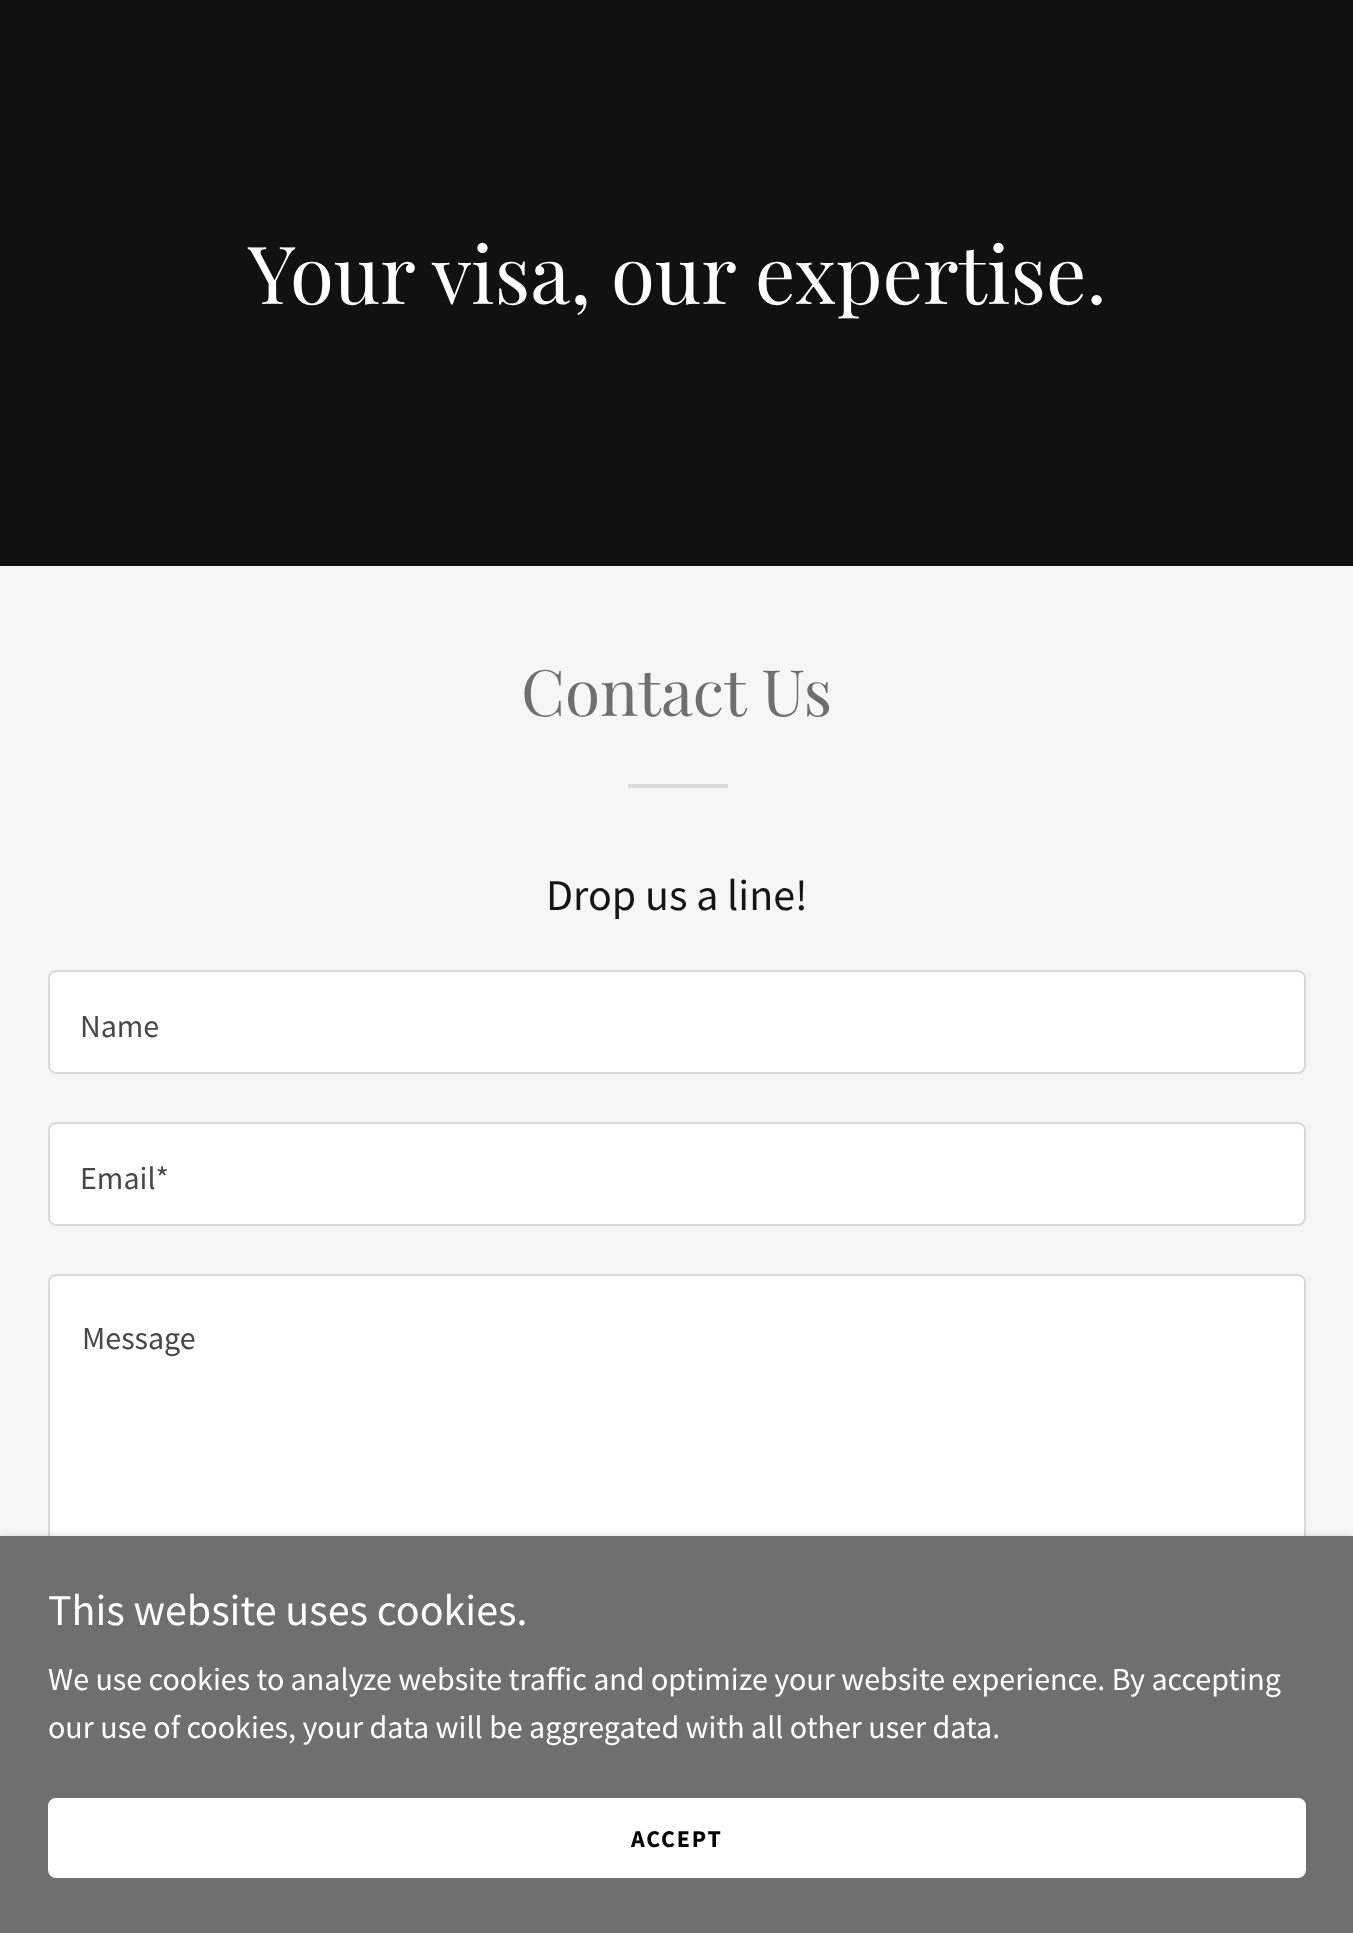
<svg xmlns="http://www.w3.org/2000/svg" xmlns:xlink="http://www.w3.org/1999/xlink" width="1353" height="1933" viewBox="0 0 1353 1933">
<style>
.cls-1{font:80px Playfair Display;fill:#ffffff}
.cls-2{font:64px Playfair Display;fill:#6f6f6f}
.cls-3{font:44px Source Sans Pro;fill:#151515}
.cls-4{font:32px Source Sans Pro;fill:#474747}
.cls-5{font:44px Source Sans Pro;fill:#ffffff}
.cls-6{font:32px Source Sans Pro;fill:#ffffff}
.cls-7{font:bold 24px Source Sans Pro;letter-spacing:1.75px;fill:#000000}
</style>
<rect width="100%" height="100%" fill="#f6f6f6"/>
<rect fill="#111111" x="0" y="0" width="1353" height="566"/>
<rect fill="#dadada" x="628" y="784" width="100" height="4"/>
<rect fill="#ffffff" stroke="#dadada" stroke-width="2" x="49" y="971" width="1256" height="102" rx="7"/>
<rect fill="#ffffff" stroke="#dadada" stroke-width="2" x="49" y="1123" width="1256" height="102" rx="7"/>
<rect fill="#ffffff" stroke="#dadada" stroke-width="2" x="49" y="1275" width="1256" height="402" rx="7"/>
<rect fill="#000000" fill-opacity="0.3" filter="blur(6px)" x="0" y="1540" width="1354" height="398"/>
<rect fill="#6f6f6f" x="0" y="1536" width="1353" height="397"/>
<rect fill="#ffffff" x="48" y="1798" width="1258" height="80" rx="8"/>
<text class="cls-1" x="248" y="304">Your visa, our expertise.</text>
<text class="cls-2" x="521" y="716">Contact Us</text>
<text class="cls-3" x="546" y="910">Drop us a line!</text>
<text class="cls-4" x="80" y="1037">Name</text>
<text class="cls-4" x="80" y="1189">Email*</text>
<text class="cls-4" x="82" y="1349">Message</text>
<text class="cls-5" x="48" y="1625">This website uses cookies.</text>
<text class="cls-6"><tspan x="48" y="1690">We use cookies to analyze website traffic and optimize your website experience. By accepting</tspan><tspan x="48" y="1738">our use of cookies, your data will be aggregated with all other user data.</tspan></text>
<text class="cls-7" x="631" y="1847">ACCEPT</text>
</svg>
